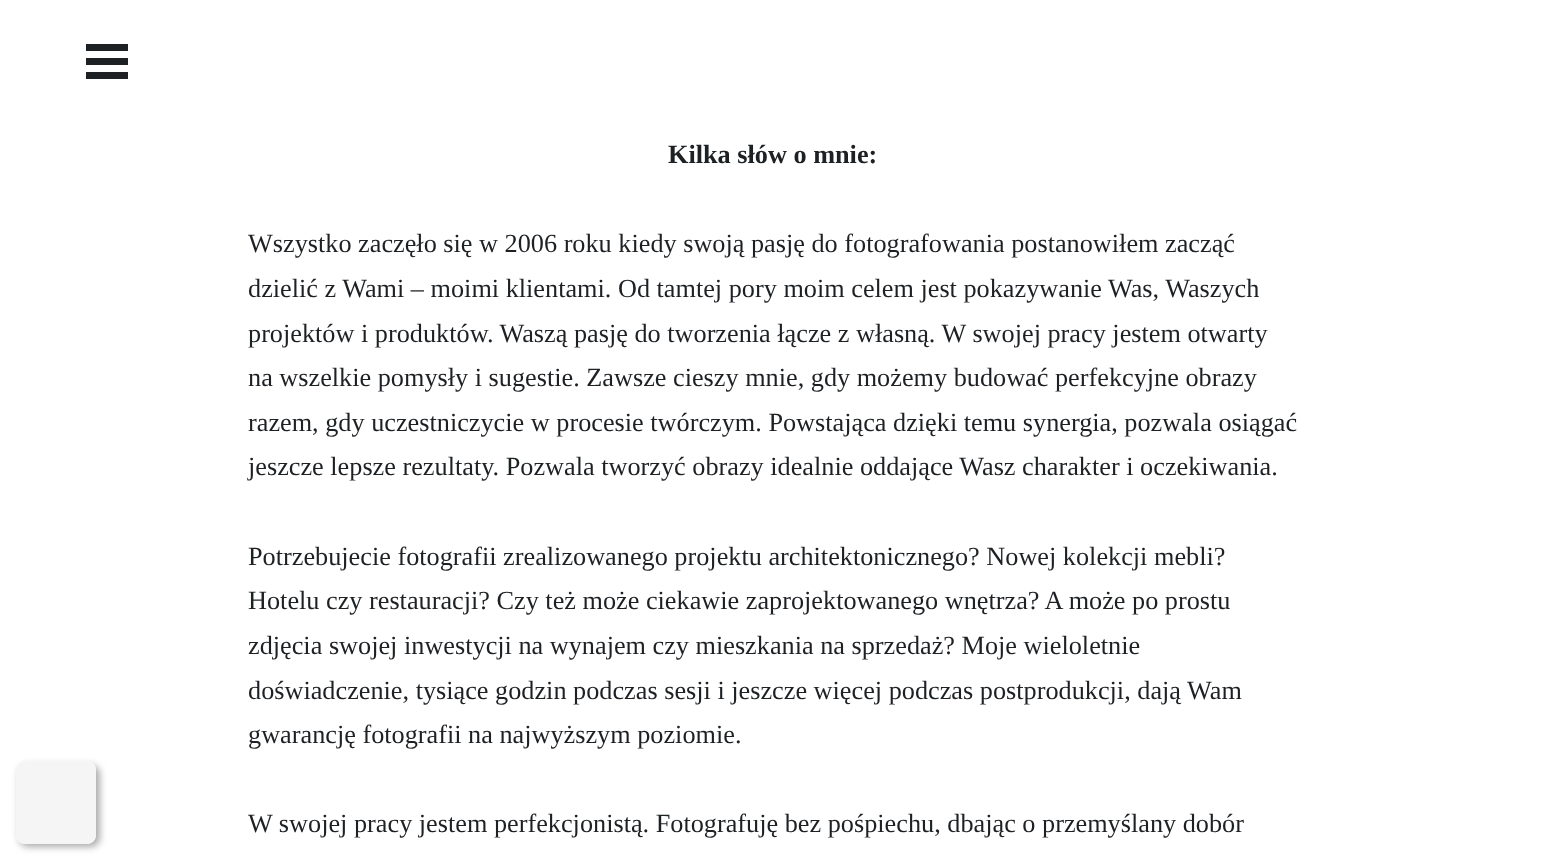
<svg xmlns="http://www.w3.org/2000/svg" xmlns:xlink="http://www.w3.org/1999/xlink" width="1544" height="858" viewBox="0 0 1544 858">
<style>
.cls-1{font:bold 26.25px Liberation Serif;fill:#1e2124}
.cls-2{font:26.25px Liberation Serif;fill:#1e2124}
</style>
<defs>
<clipPath id="clip1"><path d="M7 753H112V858H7ZM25 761H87C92 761 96 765 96 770V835C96 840 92 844 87 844H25C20 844 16 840 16 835V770C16 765 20 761 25 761Z" clip-rule="evenodd"/></clipPath>
</defs>
<rect width="100%" height="100%" fill="#ffffff"/>
<g clip-path="url(#clip1)">
<rect fill="#4d4d4d" fill-opacity="0.47" filter="blur(3.5px)" x="19" y="765" width="81" height="82" rx="9"/>
</g>
<rect fill="#f5f5f5" fill-opacity="0.99" x="16" y="761" width="80" height="83" rx="9"/>
<rect fill="#1e2124" x="86" y="44" width="42" height="7"/>
<rect fill="#1e2124" x="86" y="58" width="42" height="7"/>
<rect fill="#1e2124" x="86" y="72" width="42" height="7"/>
<text class="cls-1" x="668" y="163">Kilka słów o mnie:</text>
<text class="cls-2"><tspan x="248" y="252">Wszystko zaczęło się w 2006 roku kiedy swoją pasję do fotografowania postanowiłem zacząć</tspan><tspan x="248" y="297">dzielić z Wami – moimi klientami. Od tamtej pory moim celem jest pokazywanie Was, Waszych</tspan><tspan x="248" y="342">projektów i produktów. Waszą pasję do tworzenia łącze z własną. W swojej pracy jestem otwarty</tspan><tspan x="248" y="386">na wszelkie pomysły i sugestie. Zawsze cieszy mnie, gdy możemy budować perfekcyjne obrazy</tspan><tspan x="248" y="431">razem, gdy uczestniczycie w procesie twórczym. Powstająca dzięki temu synergia, pozwala osiągać</tspan><tspan x="248" y="475">jeszcze lepsze rezultaty. Pozwala tworzyć obrazy idealnie oddające Wasz charakter i oczekiwania.</tspan></text>
<text class="cls-2"><tspan x="248" y="565">Potrzebujecie fotografii zrealizowanego projektu architektonicznego? Nowej kolekcji mebli?</tspan><tspan x="248" y="609">Hotelu czy restauracji? Czy też może ciekawie zaprojektowanego wnętrza? A może po prostu</tspan><tspan x="248" y="654">zdjęcia swojej inwestycji na wynajem czy mieszkania na sprzedaż? Moje wieloletnie</tspan><tspan x="248" y="699">doświadczenie, tysiące godzin podczas sesji i jeszcze więcej podczas postprodukcji, dają Wam</tspan><tspan x="248" y="743">gwarancję fotografii na najwyższym poziomie.</tspan></text>
<text class="cls-2" x="248" y="832">W swojej pracy jestem perfekcjonistą. Fotografuję bez pośpiechu, dbając o przemyślany dobór</text>
</svg>
